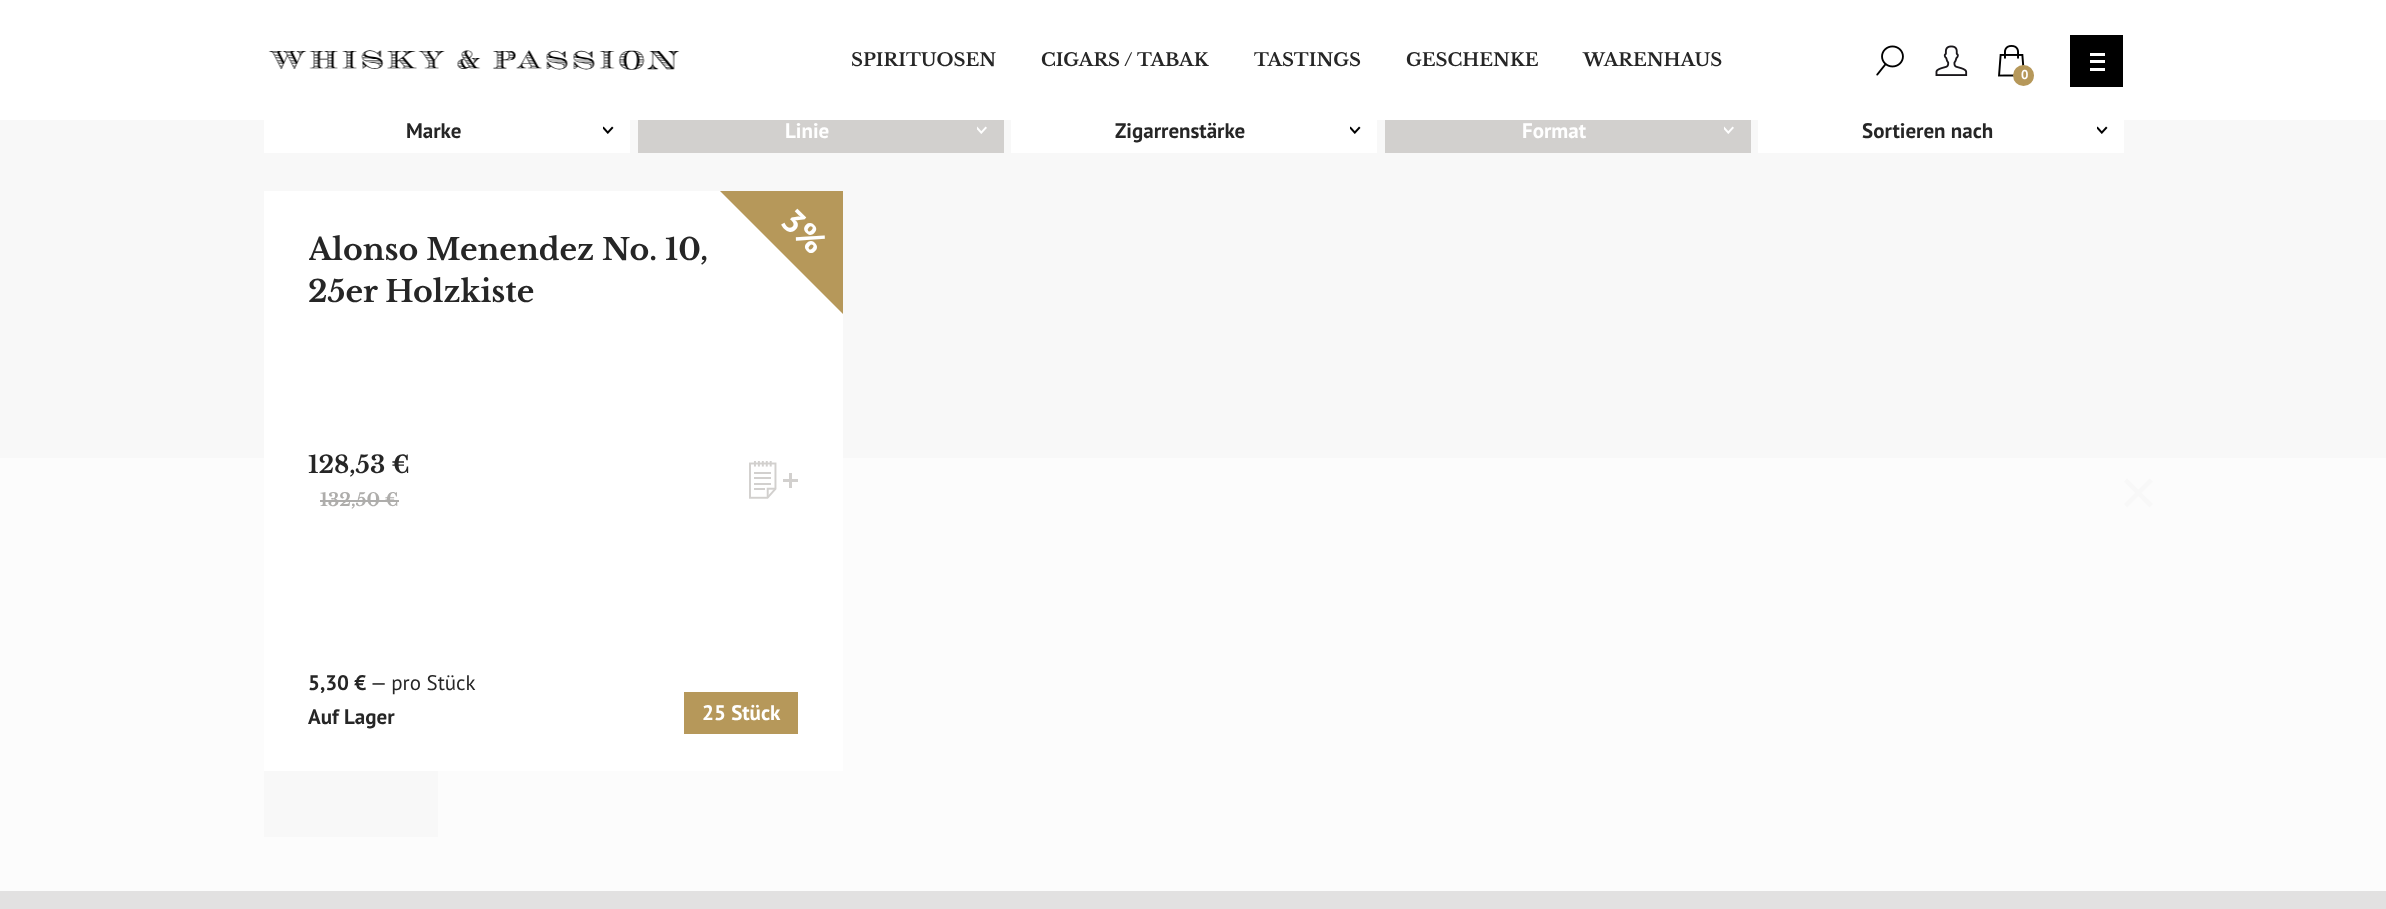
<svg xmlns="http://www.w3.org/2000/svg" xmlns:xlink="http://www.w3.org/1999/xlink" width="2386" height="909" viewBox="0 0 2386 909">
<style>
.cls-1{font:bold 18px Libre Baskerville;fill:#262626}
.cls-2{font:bold 13px PT Sans;fill:#ffffff}
.cls-3{font:bold 21px PT Sans;fill:#262626}
.cls-4{font:bold 21px PT Sans;fill:#ffffff}
.cls-5{font:bold 33px PT Sans;fill:#ffffff}
.cls-6{font:bold 30px Libre Baskerville;fill:#262626}
.cls-7{font:bold 24px Libre Baskerville;fill:#262626}
.cls-8{font:bold 18px Libre Baskerville;fill:#aeadab}
.cls-9{font:21px PT Sans;fill:#262626}
</style>
<defs>
<clipPath id="clip1"><rect x="264" y="191" width="579" height="580"/></clipPath>
<clipPath id="clip2"><rect x="309" y="228" width="465" height="84"/></clipPath>
</defs>
<rect width="100%" height="100%" fill="#fcfcfc"/>
<rect fill="#f8f8f8" x="0" y="120" width="2386" height="338"/>
<rect fill="#ffffff" x="0" y="0" width="2386" height="120"/>
<image xlink:href="image0.png" x="268" y="50" width="412" height="20"/>
<image xlink:href="image1.png" x="1876" y="45" width="28" height="31"/>
<image xlink:href="image2.png" x="1935" y="45" width="33" height="31"/>
<image xlink:href="image3.png" x="1998" y="45" width="27" height="32"/>
<circle fill="#b6985a" cx="2023.5" cy="75.5" r="10.5"/>
<rect fill="#000000" x="2070" y="35" width="53" height="52"/>
<rect fill="#ffffff" x="2090" y="60" width="15" height="3"/>
<rect fill="#ffffff" x="2090" y="53" width="15" height="3"/>
<rect fill="#ffffff" x="2090" y="68" width="15" height="3"/>
<rect fill="#ffffff" x="264" y="120" width="366" height="33"/>
<image xlink:href="image4.png" x="603" y="126" width="11" height="8"/>
<rect fill="#d2d0ce" x="638" y="120" width="366" height="33"/>
<image xlink:href="image5.png" x="977" y="126" width="10" height="8"/>
<rect fill="#ffffff" x="1011" y="120" width="366" height="33"/>
<image xlink:href="image4.png" x="1350" y="126" width="11" height="8"/>
<rect fill="#d2d0ce" x="1385" y="120" width="366" height="33"/>
<image xlink:href="image5.png" x="1724" y="126" width="10" height="8"/>
<rect fill="#ffffff" x="1758" y="120" width="366" height="33"/>
<image xlink:href="image4.png" x="2097" y="126" width="11" height="8"/>
<rect fill="#ffffff" x="264" y="191" width="579" height="580"/>
<g clip-path="url(#clip1)">
<path fill="#b6985a" d="M778 96L938 257L862 333L702 173Z"/>
</g>
<rect fill="#aeadab" x="320" y="500" width="79" height="2"/>
<image xlink:href="image6.png" x="749" y="461" width="49" height="38"/>
<rect fill="#b6985a" x="684" y="692" width="114" height="42"/>
<rect fill="#e2e1e1" x="0" y="891" width="2386" height="18"/>
<path fill="#f8f8f8" fill-rule="evenodd" d="M2127 478.5L2153 504L2149.5 507.5L2124 481.5Z"/>
<path fill="#f8f8f8" fill-rule="evenodd" d="M2124 504L2149.5 478.5L2153 481.5L2127 507.5Z"/>
<rect fill="#f8f8f8" x="264" y="771" width="174" height="66"/>
<text class="cls-1" x="851" y="66">SPIRITUOSEN</text>
<text class="cls-1" x="1041" y="66">CIGARS / TABAK</text>
<text class="cls-1" x="1254" y="66">TASTINGS</text>
<text class="cls-1" x="1406" y="66">GESCHENKE</text>
<text class="cls-1" x="1583" y="66">WARENHAUS</text>
<text class="cls-2" x="2021" y="79">0</text>
<text class="cls-3" x="406" y="138">Marke</text>
<text class="cls-4" x="785" y="138">Linie</text>
<text class="cls-3" x="1115" y="138">Zigarrenstärke</text>
<text class="cls-4" x="1522" y="138">Format</text>
<text class="cls-3" x="1862" y="138">Sortieren nach</text>
<text class="cls-5" x="779" y="223" transform="rotate(45 779 223)">3%</text>
<g clip-path="url(#clip2)">
<text class="cls-6" x="308" y="260">Alonso Menendez No. 10,</text>
</g>
<text class="cls-6" x="308" y="302">25er Holzkiste</text>
<text class="cls-7" x="308" y="473">128,53 €</text>
<text class="cls-8" x="320" y="506">132,50 €</text>
<text class="cls-3" x="308" y="690">5,30 €</text>
<text class="cls-9" x="370" y="690">— pro Stück</text>
<text class="cls-3" x="308" y="724">Auf Lager</text>
<text class="cls-4" x="702" y="720">25 Stück</text>
</svg>
